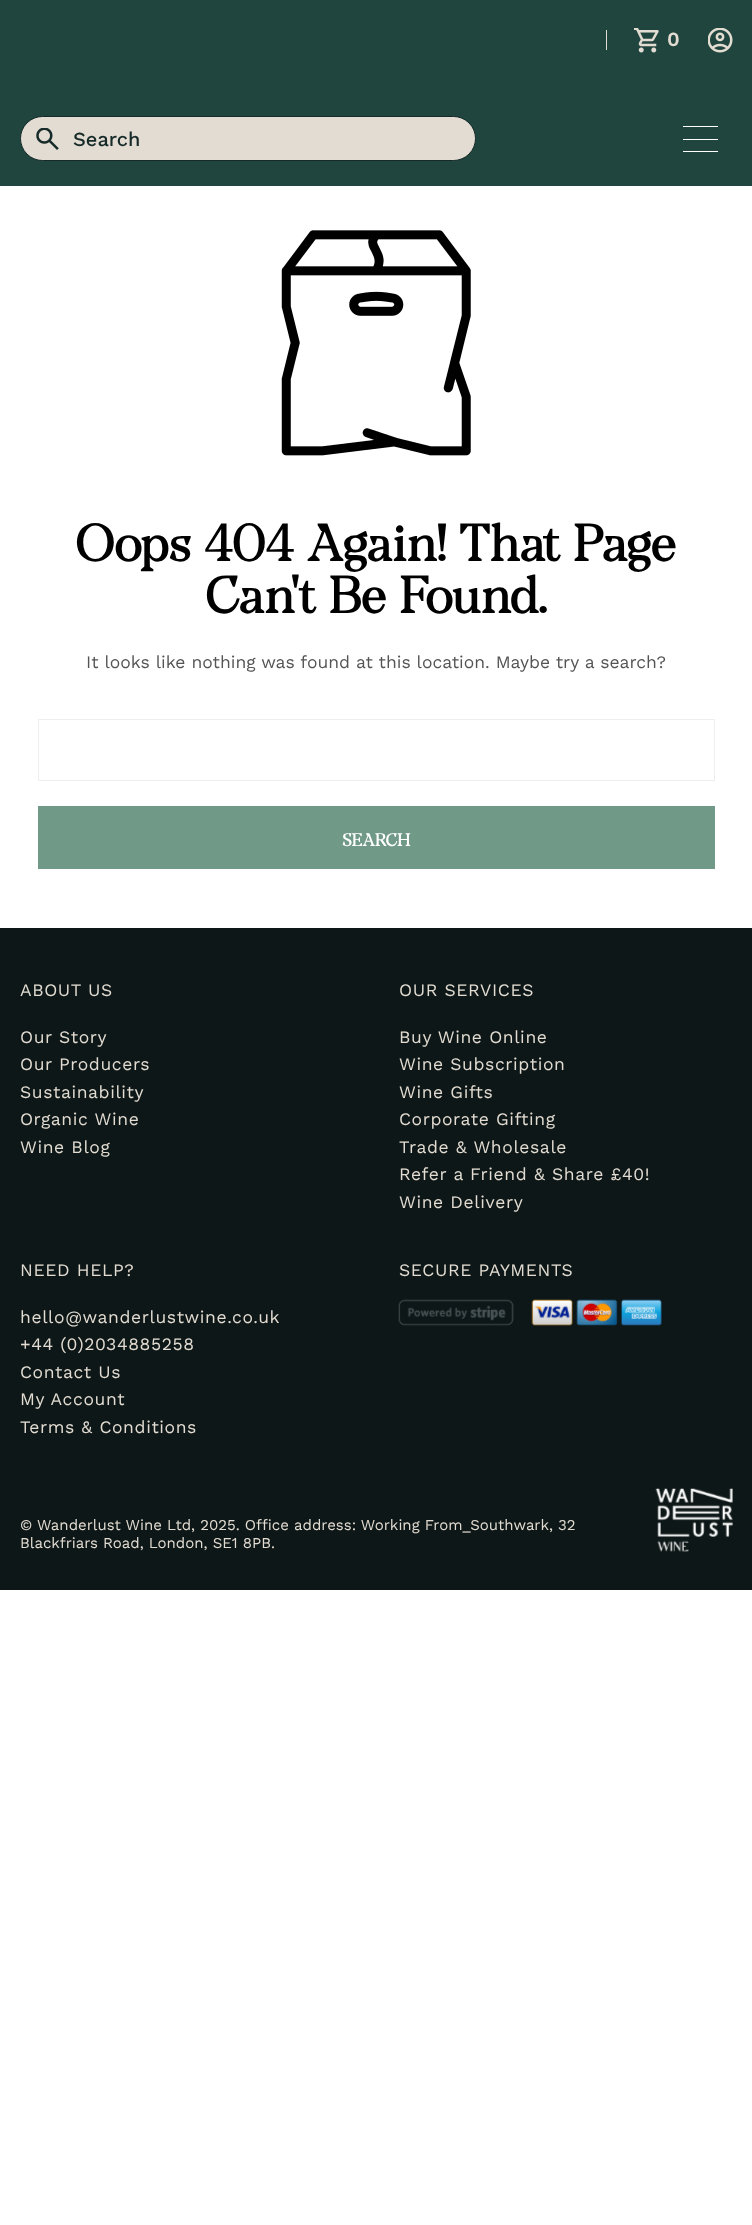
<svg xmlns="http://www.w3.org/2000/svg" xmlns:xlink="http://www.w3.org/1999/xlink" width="752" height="2225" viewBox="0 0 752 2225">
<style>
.cls-1{font:600 20px Work Sans;letter-spacing:1px;fill:#e2dcd2}
.cls-2{font:500 20px Work Sans;fill:#162a29}
.cls-3{font:bold 51.25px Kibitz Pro;fill:#000000}
.cls-4{font:17.5px Work Sans;fill:#545454}
.cls-5{font:bold 17.5px Kibitz Pro;fill:#ffffff}
.cls-6{font:17.5px Work Sans;letter-spacing:0.6px;fill:#e2dcd2}
.cls-7{font:15px Work Sans;fill:#e2dcd2}
</style>
<rect width="100%" height="100%" fill="#ffffff"/>
<rect fill="#20453e" x="0" y="0" width="752" height="186"/>
<rect fill="#e2dcd2" x="606" y="30" width="1" height="20"/>
<image xlink:href="image0.png" x="634" y="28" width="25" height="25"/>
<image xlink:href="image1.png" x="708" y="28" width="25" height="25"/>
<rect fill="#e2dcd2" stroke="#162a29" x="20.5" y="116.5" width="455" height="44" rx="22"/>
<image xlink:href="image2.png" x="36" y="128" width="23" height="22"/>
<rect fill="#ffffff" x="683" y="126" width="35" height="1"/>
<rect fill="#ffffff" x="683" y="139" width="35" height="1"/>
<rect fill="#ffffff" x="683" y="151" width="35" height="1"/>
<image xlink:href="image3.png" x="281" y="230" width="190" height="226"/>
<rect fill="none" stroke="#eeeeee" x="38.5" y="719.5" width="676" height="61"/>
<rect fill="#709987" x="38" y="806" width="677" height="63"/>
<rect fill="#0e1717" x="0" y="928" width="752" height="662"/>
<image xlink:href="image4.png" x="398" y="1299" width="264" height="27"/>
<image xlink:href="image5.png" x="655" y="1488" width="78" height="64"/>
<text class="cls-1" x="667" y="46">0</text>
<text class="cls-2" x="73" y="146">Search</text>
<text class="cls-3" x="75" y="561">Oops 404 Again! That Page</text>
<text class="cls-3" x="205" y="613">Can't Be Found.</text>
<text class="cls-4" x="86" y="668">It looks like nothing was found at this location. Maybe try a search?</text>
<text class="cls-5" x="342" y="846">SEARCH</text>
<text class="cls-6" x="20" y="996">ABOUT US</text>
<text class="cls-6"><tspan x="20" y="1043">Our Story</tspan><tspan x="20" y="1070">Our Producers</tspan><tspan x="20" y="1098">Sustainability</tspan><tspan x="20" y="1125">Organic Wine</tspan><tspan x="20" y="1153">Wine Blog</tspan></text>
<text class="cls-6" x="399" y="996">OUR SERVICES</text>
<text class="cls-6"><tspan x="399" y="1043">Buy Wine Online</tspan><tspan x="399" y="1070">Wine Subscription</tspan><tspan x="399" y="1098">Wine Gifts</tspan><tspan x="399" y="1125">Corporate Gifting</tspan><tspan x="399" y="1153">Trade &amp; Wholesale</tspan><tspan x="399" y="1180">Refer a Friend &amp; Share £40!</tspan><tspan x="399" y="1208">Wine Delivery</tspan></text>
<text class="cls-6" x="20" y="1276">NEED HELP?</text>
<text class="cls-6"><tspan x="20" y="1323">hello@wanderlustwine.co.uk</tspan><tspan x="20" y="1350">+44 (0)2034885258</tspan><tspan x="20" y="1378">Contact Us</tspan><tspan x="20" y="1405">My Account</tspan><tspan x="20" y="1433">Terms &amp; Conditions</tspan></text>
<text class="cls-6" x="399" y="1276">SECURE PAYMENTS</text>
<text class="cls-7"><tspan x="20" y="1530">© Wanderlust Wine Ltd, 2025. Office address: Working From_Southwark, 32</tspan><tspan x="20" y="1548">Blackfriars Road, London, SE1 8PB.</tspan></text>
</svg>
